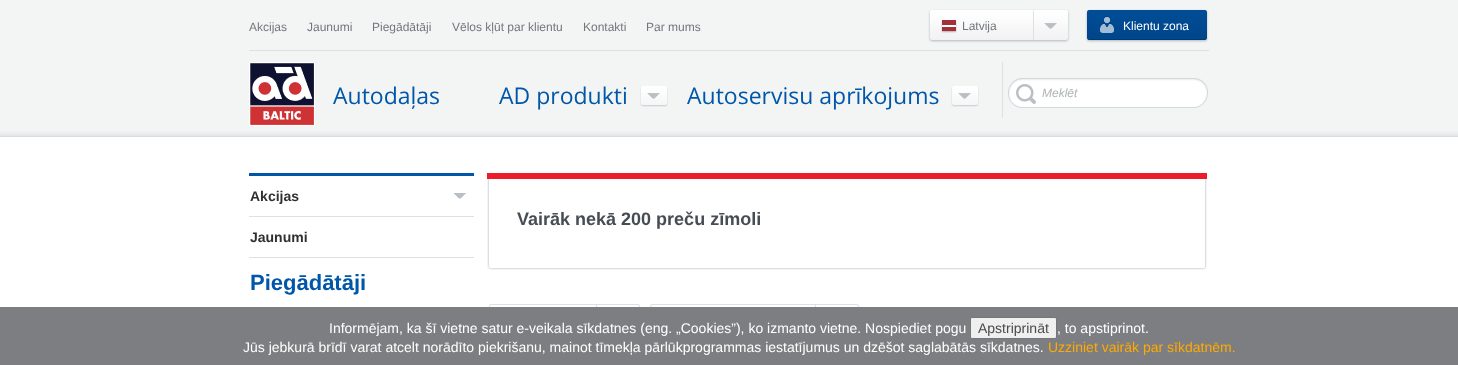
<svg xmlns="http://www.w3.org/2000/svg" xmlns:xlink="http://www.w3.org/1999/xlink" width="1458" height="365" viewBox="0 0 1458 365">
<style>
.cls-1{font:12px Liberation Sans;fill:#72777c}
.cls-2{font:12px Liberation Sans;fill:#ffffff}
.cls-3{font:23px Open Sans;fill:#0057aa}
.cls-4{font:italic 12px Liberation Sans;fill:#b0b3b5}
.cls-5{font:bold 14px Liberation Sans;fill:#2e3032}
.cls-6{font:bold 22px Liberation Sans;fill:#0057aa}
.cls-7{font:bold 18px Liberation Sans;fill:#474d54}
.cls-8{font:14px Liberation Sans;fill:#ffffff}
.cls-9{font:14px Liberation Sans;fill:#4b4b4b}
.cls-10{font:14px Liberation Sans;fill:#ffaa00}
</style>
<rect width="100%" height="100%" fill="#f3f5f5"/>
<image xlink:href="image0.png" x="0" y="131" width="1458" height="6"/>
<rect fill="#dee1e4" x="249" y="50" width="960" height="1"/>
<image xlink:href="image1.png" x="1033" y="9" width="37" height="34"/>
<image xlink:href="image2.png" x="928" y="9" width="105" height="34"/>
<image xlink:href="image3.png" x="941" y="20" width="16" height="13"/>
<image xlink:href="image4.png" x="1199" y="9" width="10" height="34"/>
<image xlink:href="image5.png" x="1085" y="9" width="114" height="34"/>
<image xlink:href="image6.png" x="249" y="62" width="66" height="64"/>
<image xlink:href="image7.png" x="640" y="86" width="28" height="21"/>
<image xlink:href="image7.png" x="951" y="86" width="28" height="21"/>
<rect fill="#dee1e4" x="1002" y="62" width="1" height="56"/>
<image xlink:href="image8.png" x="1008" y="78" width="34" height="30"/>
<image xlink:href="image9.png" x="1042" y="78" width="166" height="30"/>
<rect fill="#ffffff" x="0" y="137" width="1458" height="170"/>
<rect fill="#0057aa" x="249" y="173" width="225" height="3"/>
<image xlink:href="image10.png" x="453" y="193" width="13" height="6"/>
<rect fill="#dee1e4" x="249" y="216" width="225" height="1"/>
<rect fill="#dee1e4" x="249" y="257" width="225" height="1"/>
<rect fill="#ed1b2e" x="487" y="173" width="720" height="6"/>
<image xlink:href="image11.png" x="487" y="179" width="720" height="81"/>
<image xlink:href="image12.png" x="487" y="260" width="720" height="10"/>
<image xlink:href="image13.png" x="596" y="304" width="44" height="3"/>
<image xlink:href="image14.png" x="489" y="304" width="107" height="3"/>
<image xlink:href="image13.png" x="815" y="304" width="44" height="3"/>
<image xlink:href="image15.png" x="650" y="304" width="165" height="3"/>
<rect fill="#7d7e81" x="0" y="307" width="1458" height="58"/>
<rect fill="#efefef" stroke="#767676" x="970.5" y="317.5" width="86" height="21" rx="1.5"/>
<text class="cls-1" x="249" y="31">Akcijas</text>
<text class="cls-1" x="307" y="31">Jaunumi</text>
<text class="cls-1" x="372" y="31">Piegādātāji</text>
<text class="cls-1" x="452" y="31">Vēlos kļūt par klientu</text>
<text class="cls-1" x="583" y="31">Kontakti</text>
<text class="cls-1" x="646" y="31">Par mums</text>
<text class="cls-1" x="962" y="30">Latvija</text>
<text class="cls-2" x="1123" y="30">Klientu zona</text>
<text class="cls-3" x="333" y="104">Autodaļas</text>
<text class="cls-3" x="499" y="104">AD produkti</text>
<text class="cls-3" x="687" y="104">Autoservisu aprīkojums</text>
<text class="cls-4" x="1042" y="97">Meklēt</text>
<text class="cls-5" x="250" y="201">Akcijas</text>
<text class="cls-5" x="250" y="242">Jaunumi</text>
<text class="cls-6" x="250" y="290">Piegādātāji</text>
<text class="cls-7" x="517" y="225">Vairāk nekā 200 preču zīmoli</text>
<text class="cls-8" x="329" y="333">Informējam, ka šī vietne satur e-veikala sīkdatnes (eng. „Cookies”), ko izmanto vietne. Nospiediet pogu</text>
<text class="cls-9" x="978" y="333">Apstriprināt</text>
<text class="cls-8" x="1057" y="333">, to apstiprinot.</text>
<text class="cls-8" x="243" y="352">Jūs jebkurā brīdī varat atcelt norādīto piekrišanu, mainot tīmekļa pārlūkprogrammas iestatījumus un dzēšot saglabātās sīkdatnes.</text>
<text class="cls-10" x="1048" y="352">Uzziniet vairāk par sīkdatnēm.</text>
</svg>
